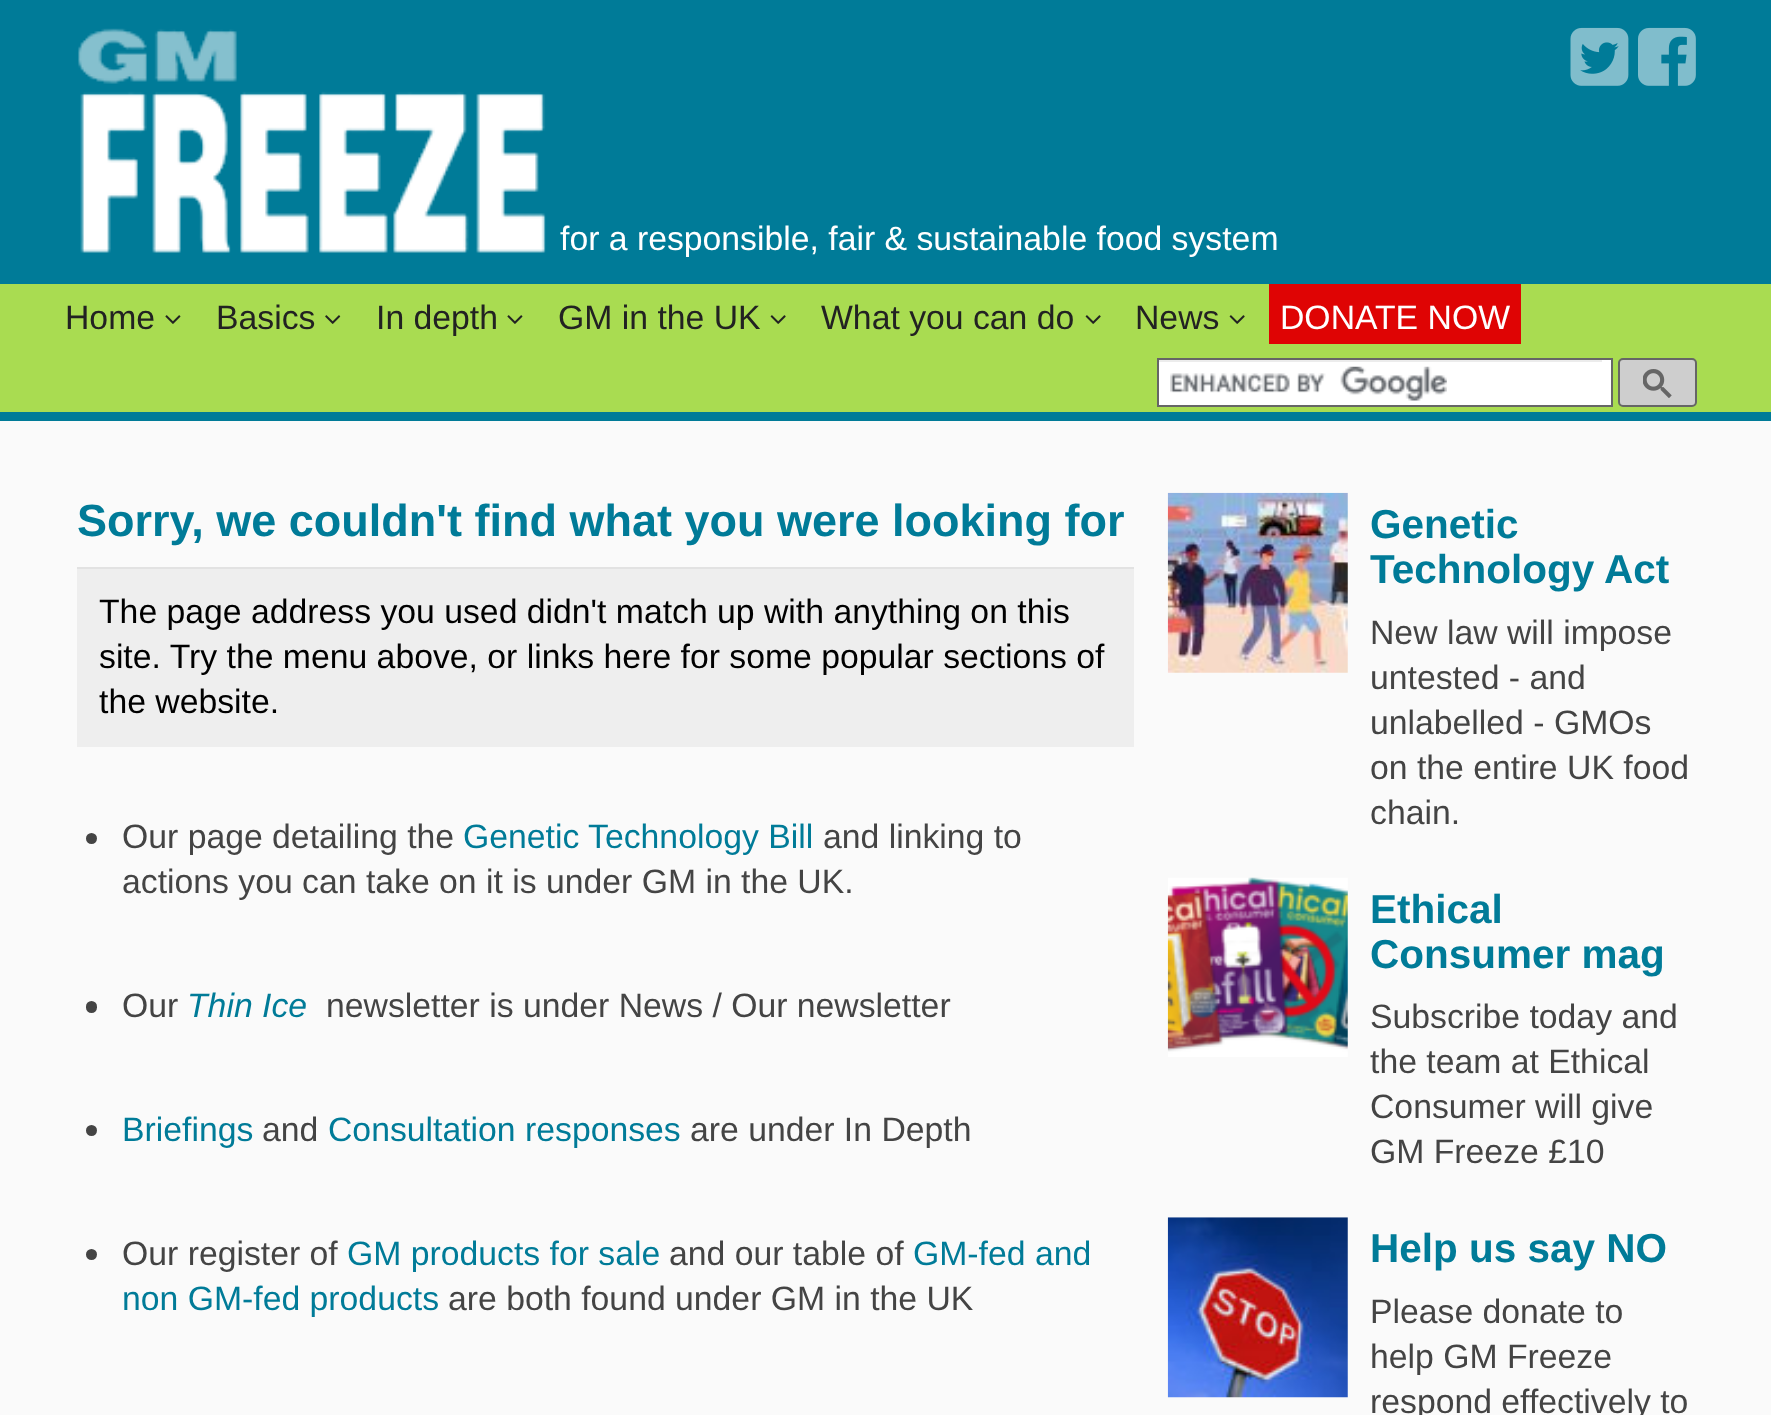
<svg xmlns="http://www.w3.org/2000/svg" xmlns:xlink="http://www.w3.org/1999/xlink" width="1771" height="1415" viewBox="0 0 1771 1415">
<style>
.cls-1{font:33.75px Liberation Sans;fill:#ffffff}
.cls-2{font:33.75px Liberation Sans;fill:#222222}
.cls-3{font:bold 45px Liberation Sans;fill:#007b98}
.cls-4{font:33.75px Liberation Sans;fill:#000000}
.cls-5{font:33.75px Liberation Sans;fill:#444444}
.cls-6{font:33.75px Liberation Sans;fill:#007b98}
.cls-7{font:italic 33.75px Liberation Sans;fill:#007b98}
.cls-8{font:bold 40.5px Liberation Sans;fill:#007b98}
</style>
<rect width="100%" height="100%" fill="#fafafa"/>
<rect fill="#007b98" x="0" y="0" width="1771" height="284"/>
<image xlink:href="image0.png" x="1570" y="27" width="59" height="59"/>
<image xlink:href="image1.png" x="1638" y="27" width="58" height="59"/>
<image xlink:href="image2.png" x="78" y="28" width="468" height="225"/>
<rect fill="#a9dc51" x="0" y="284" width="1771" height="128"/>
<rect fill="#007b98" x="0" y="412" width="1771" height="9"/>
<image xlink:href="image3.png" x="165" y="315" width="16" height="9"/>
<image xlink:href="image4.png" x="325" y="315" width="16" height="9"/>
<image xlink:href="image3.png" x="507" y="315" width="16" height="9"/>
<image xlink:href="image5.png" x="770" y="315" width="16" height="9"/>
<image xlink:href="image5.png" x="1085" y="315" width="16" height="9"/>
<image xlink:href="image5.png" x="1229" y="315" width="16" height="9"/>
<rect fill="#df0404" x="1269" y="284" width="252" height="60"/>
<rect fill="#ffffff" stroke="#666666" stroke-width="2" x="1158" y="359" width="454" height="47"/>
<image xlink:href="image6.png" x="1170" y="366" width="277" height="35"/>
<rect fill="#ececec" x="1159" y="360" width="443" height="2"/>
<rect fill="#cecece" stroke="#666666" stroke-width="2" x="1619" y="359" width="77" height="47" rx="4"/>
<image xlink:href="image7.png" x="1643" y="369" width="29" height="29"/>
<rect fill="#eeeeee" x="77" y="569" width="1057" height="178"/>
<rect fill="#e2e2e2" x="77" y="567" width="1057" height="2"/>
<circle fill="#444444" cx="91.5" cy="838.5" r="5.5"/>
<rect fill="#444444" x="86" y="1001" width="11" height="12" rx="5.5"/>
<circle fill="#444444" cx="91.5" cy="1130.5" r="5.5"/>
<circle fill="#444444" cx="91.5" cy="1254.5" r="5.5"/>
<image xlink:href="image8.png" x="1167" y="492" width="181" height="181"/>
<image xlink:href="image9.png" x="1167" y="877" width="181" height="180"/>
<image xlink:href="image10.png" x="1167" y="1217" width="181" height="181"/>
<text class="cls-1" x="560" y="250">for a responsible, fair &amp; sustainable food system</text>
<text class="cls-2" x="65" y="329">Home</text>
<text class="cls-2" x="216" y="329">Basics</text>
<text class="cls-2" x="376" y="329">In depth</text>
<text class="cls-2" x="558" y="329">GM in the UK</text>
<text class="cls-2" x="821" y="329">What you can do</text>
<text class="cls-2" x="1135" y="329">News</text>
<text class="cls-1" x="1280" y="329">DONATE NOW</text>
<text class="cls-3" x="77" y="536">Sorry, we couldn't find what you were looking for</text>
<text class="cls-4"><tspan x="99" y="623">The page address you used didn't match up with anything on this</tspan><tspan x="99" y="668">site. Try the menu above, or links here for some popular sections of</tspan><tspan x="99" y="713">the website.</tspan></text>
<text class="cls-5" x="122" y="848">Our page detailing the</text>
<text class="cls-6" x="463" y="848">Genetic Technology Bill</text>
<text class="cls-5" x="823" y="848">and linking to</text>
<text class="cls-5" x="122" y="893">actions you can take on it is under GM in the UK.</text>
<text class="cls-5" x="122" y="1017">Our</text>
<text class="cls-7" x="187" y="1017">Thin Ice</text>
<text class="cls-5" x="326" y="1017">newsletter is under News / Our newsletter</text>
<text class="cls-6" x="122" y="1141">Briefings</text>
<text class="cls-5" x="262" y="1141">and</text>
<text class="cls-6" x="328" y="1141">Consultation responses</text>
<text class="cls-5" x="690" y="1141">are under In Depth</text>
<text class="cls-5" x="122" y="1265">Our register of</text>
<text class="cls-6" x="347" y="1265">GM products for sale</text>
<text class="cls-5" x="669" y="1265">and our table of</text>
<text class="cls-6" x="913" y="1265">GM-fed and</text>
<text class="cls-6" x="122" y="1310">non GM-fed products</text>
<text class="cls-5" x="448" y="1310">are both found under GM in the UK</text>
<text class="cls-8"><tspan x="1370" y="538">Genetic</tspan><tspan x="1370" y="583">Technology Act</tspan></text>
<text class="cls-5"><tspan x="1370" y="644">New law will impose</tspan><tspan x="1370" y="689">untested - and</tspan><tspan x="1370" y="734">unlabelled - GMOs</tspan><tspan x="1370" y="779">on the entire UK food</tspan><tspan x="1370" y="824">chain.</tspan></text>
<text class="cls-8"><tspan x="1370" y="923">Ethical</tspan><tspan x="1370" y="968">Consumer mag</tspan></text>
<text class="cls-5"><tspan x="1370" y="1028">Subscribe today and</tspan><tspan x="1370" y="1073">the team at Ethical</tspan><tspan x="1370" y="1118">Consumer will give</tspan><tspan x="1370" y="1163">GM Freeze £10</tspan></text>
<text class="cls-8" x="1370" y="1262">Help us say NO</text>
<text class="cls-5"><tspan x="1370" y="1323">Please donate to</tspan><tspan x="1370" y="1368">help GM Freeze</tspan><tspan x="1370" y="1413">respond effectively to</tspan></text>
</svg>
